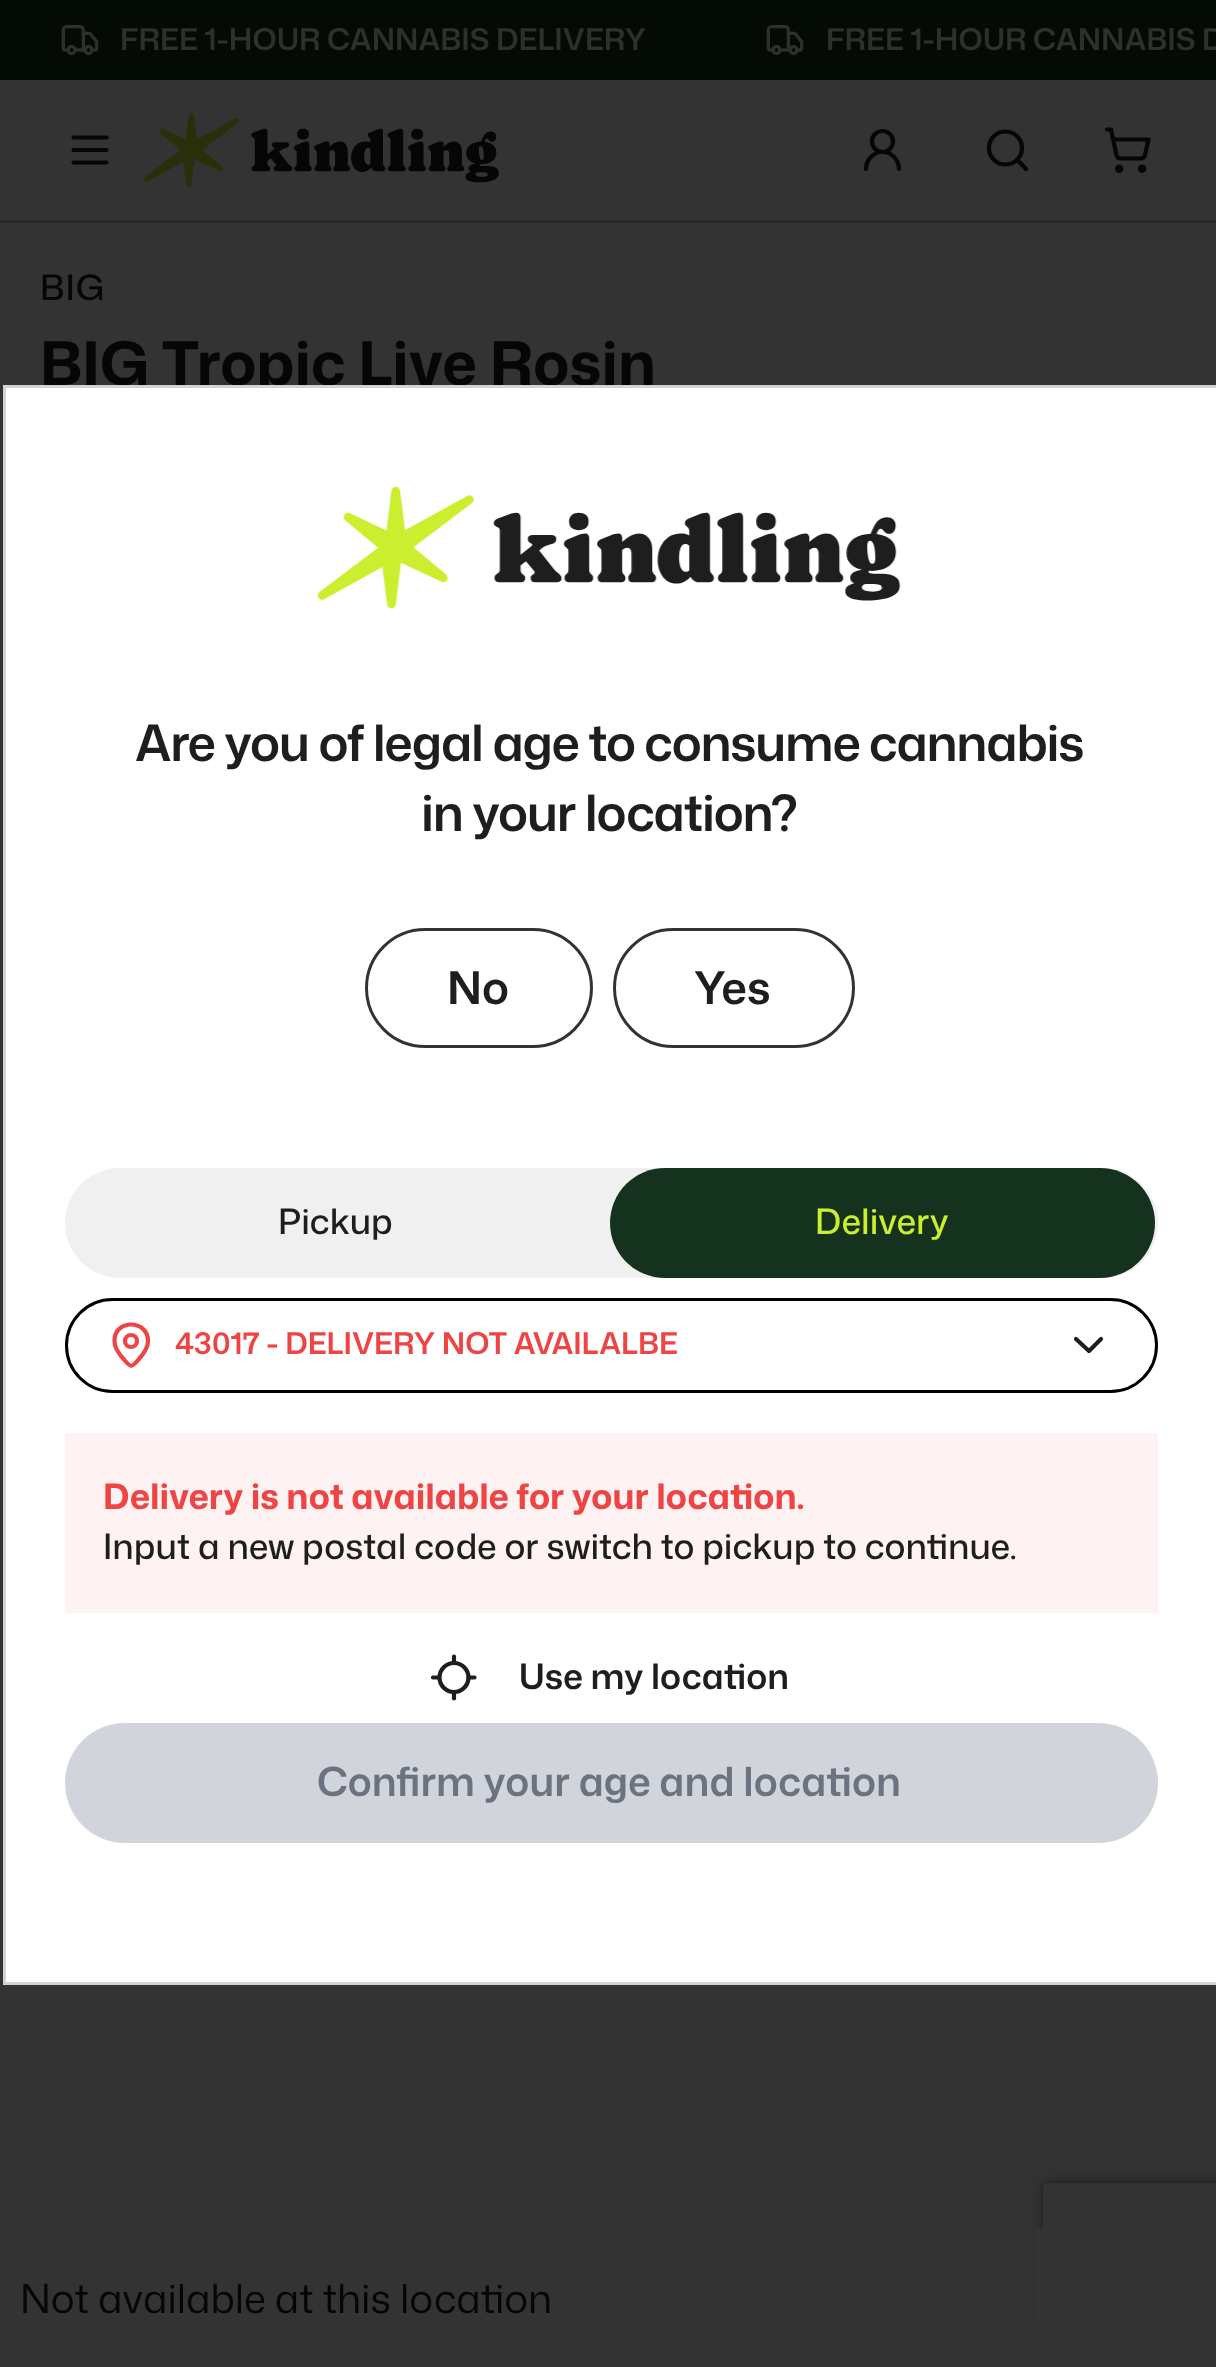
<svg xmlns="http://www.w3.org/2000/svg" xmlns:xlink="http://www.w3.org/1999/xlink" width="1216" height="2367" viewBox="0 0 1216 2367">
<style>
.cls-1{font:600 30px Mona Sans;fill:#2e3029}
.cls-2{font:500 35px Mona Sans;letter-spacing:1px;fill:#060606}
.cls-3{font:bold 60px Mona Sans;fill:#060606}
.cls-4{font:40px Mona Sans;fill:#060606}
.cls-5{font:600 50px Mona Sans;letter-spacing:-1.25px;fill:#1e1e1e}
.cls-6{font:600 45px Mona Sans;fill:#1e1e1e}
.cls-7{font:500 35px Mona Sans;fill:#1e1e1e}
.cls-8{font:500 35px Mona Sans;fill:#cbee2f}
.cls-9{font:600 30px Mona Sans;fill:#ef4444}
.cls-10{font:bold 35px Mona Sans;fill:#ef4444}
.cls-11{font:600 35px Mona Sans;fill:#1e1e1e}
.cls-12{font:600 40px Mona Sans;fill:#6b7280}
</style>
<defs>
<clipPath id="clip1"><path d="M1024 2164H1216V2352H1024ZM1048 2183H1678C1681 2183 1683 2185 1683 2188V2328C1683 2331 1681 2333 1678 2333H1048C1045 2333 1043 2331 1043 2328V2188C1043 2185 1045 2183 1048 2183Z" clip-rule="evenodd"/></clipPath>
</defs>
<rect width="100%" height="100%" fill="#333333"/>
<rect fill="#040a06" x="0" y="0" width="1216" height="80"/>
<image xlink:href="image0.png" x="61" y="25" width="38" height="31"/>
<image xlink:href="image0.png" x="766" y="25" width="38" height="31"/>
<rect fill="#2a2a2a" x="0" y="220" width="1216" height="3"/>
<path fill="none" stroke="#060606" stroke-width="4.2" stroke-linecap="round" stroke-linejoin="round" d="M73.5 150H106.5M73.5 137.5H106.5M73.5 162.5H106.5"/>
<image xlink:href="image1.png" x="143" y="113" width="356" height="74"/>
<circle fill="none" stroke="#060606" stroke-width="4.2" cx="882.5" cy="141.5" r="10.5"/>
<path fill="none" stroke="#060606" stroke-width="4.2" stroke-linecap="round" stroke-linejoin="round" d="M899 169C899 159.5 891.5 152 882.5 152C873.5 152 866 159.5 866 169"/>
<circle fill="none" stroke="#060606" stroke-width="4.2" cx="1005.5" cy="148" r="16.5"/>
<path fill="none" stroke="#060606" stroke-width="4.2" stroke-linecap="round" stroke-linejoin="round" d="M1026 169L1017.5 160"/>
<circle fill="none" stroke="#060606" stroke-width="4.2" cx="1119.2" cy="168.8" r="2.1"/>
<circle fill="none" stroke="#060606" stroke-width="4.2" cx="1142.1" cy="168.8" r="2.1"/>
<path fill="none" stroke="#060606" stroke-width="4.2" stroke-linecap="round" stroke-linejoin="round" d="M1107 129.5H1111L1116.5 155C1117 157 1118.5 158.5 1120.5 158.5H1141C1143 158.5 1144.5 157 1145 155L1148.5 139.5H1113"/>
<g clip-path="url(#clip1)">
<rect fill="#1a1a1a" filter="blur(6px)" x="1043" y="2183" width="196" height="150" rx="5"/>
</g>
<rect fill="#333333" x="1035" y="2228" width="181" height="113"/>
<text class="cls-1" x="120" y="50">FREE 1-HOUR CANNABIS DELIVERY</text>
<text class="cls-1" x="826" y="50">FREE 1-HOUR CANNABIS D</text>
<text class="cls-2" x="40" y="300">BIG</text>
<text class="cls-3" x="40" y="385">BIG Tropic Live Rosin</text>
<text class="cls-4" x="20" y="2313">Not available at this location</text>
<rect fill="#ffffff" stroke="#d3d3d3" stroke-width="3" x="4.5" y="386.5" width="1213" height="1597"/>
<image xlink:href="image2.png" x="317" y="486" width="584" height="123"/>
<text class="cls-5" x="135" y="761">Are you of legal age to consume cannabis</text>
<text class="cls-5" x="421" y="831">in your location?</text>
<rect fill="none" stroke="#333333" stroke-width="3" x="366.5" y="929.5" width="225" height="117" rx="58.5"/>
<text class="cls-6" x="447" y="1004">No</text>
<rect fill="none" stroke="#333333" stroke-width="3" x="614.5" y="929.5" width="239" height="117" rx="58.5"/>
<text class="cls-6" x="694" y="1004">Yes</text>
<rect fill="#f0f0f0" x="65" y="1168" width="1093" height="110" rx="55"/>
<text class="cls-7" x="278" y="1234">Pickup</text>
<rect fill="#15321e" x="610" y="1168" width="545" height="110" rx="55"/>
<text class="cls-8" x="815" y="1234">Delivery</text>
<rect fill="none" stroke="#000000" stroke-width="3" x="66.5" y="1299.5" width="1090" height="92" rx="46"/>
<path fill="none" stroke="#ef4444" stroke-width="4.2" stroke-linecap="round" stroke-linejoin="round" d="M148 1341C148 1347.5 143.5 1354 139 1359C131 1368 131.5 1368 123.5 1359C119 1354 114.5 1348 114.5 1341C114 1319 148 1319 148 1341"/>
<circle fill="none" stroke="#ef4444" stroke-width="4.2" cx="131" cy="1341" r="6"/>
<text class="cls-9" x="175" y="1354">43017 - DELIVERY NOT AVAILALBE</text>
<path fill="none" stroke="#1e1e1e" stroke-width="4.2" stroke-linecap="round" stroke-linejoin="round" d="M1076 1339L1089 1351L1101 1339"/>
<rect fill="#fef2f2" x="65" y="1433" width="1093" height="180"/>
<text class="cls-10" x="103" y="1509">Delivery is not available for your location.</text>
<text class="cls-7" x="103" y="1559">Input a new postal code or switch to pickup to continue.</text>
<path fill="none" stroke="#1e1e1e" stroke-width="4.2" stroke-linecap="round" stroke-linejoin="round" d="M433 1677.5H439M468.5 1677.5H474.5M454 1656.5V1663M454 1692V1698.5"/>
<circle fill="none" stroke="#1e1e1e" stroke-width="4.2" cx="454" cy="1677.5" r="14.5"/>
<text class="cls-11" x="519" y="1689">Use my location</text>
<rect fill="#d1d5db" x="65" y="1723" width="1093" height="120" rx="60"/>
<text class="cls-12" x="317" y="1796">Confirm your age and location</text>
</svg>
